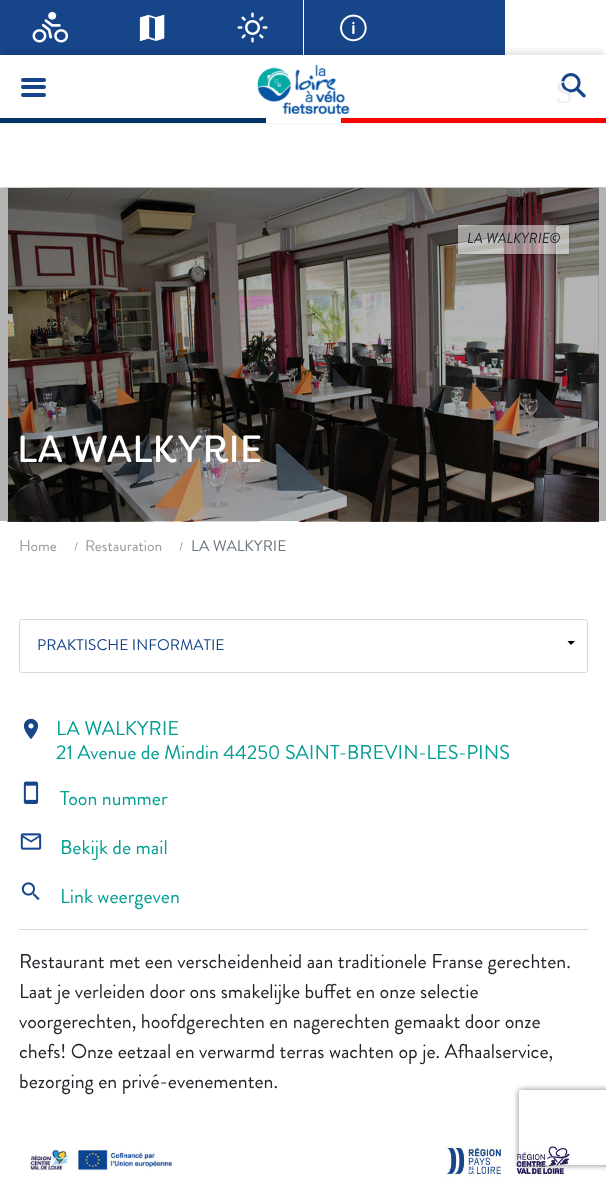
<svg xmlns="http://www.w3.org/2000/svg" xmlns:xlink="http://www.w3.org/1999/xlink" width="606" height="1182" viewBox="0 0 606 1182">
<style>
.cls-1{font:33px Liberation Serif;fill:#ebeff5}
.cls-2{font:italic 14.5px Brandon Grotesque;fill:#212529}
.cls-3{font:37.75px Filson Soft;fill:#ffffff}
.cls-4{font:15.5px Brandon Grotesque;fill:#9b9b9b}
.cls-5{font:13px Brandon Grotesque;fill:#9b9b9b}
.cls-6{font:15.5px Brandon Grotesque;fill:#6c757d}
.cls-7{font:15.5px Brandon Grotesque;fill:#174589}
.cls-8{font:20px Brandon Grotesque;fill:#049f94}
.cls-9{font:20px Brandon Grotesque;fill:#212529}
</style>
<defs>
<clipPath id="clip1"><rect x="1" y="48" width="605" height="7"/></clipPath>
<clipPath id="clip2"><path d="M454 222H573V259H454ZM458 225H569V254H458Z" clip-rule="evenodd"/></clipPath>
<clipPath id="clip3"><path d="M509 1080H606V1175H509ZM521.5 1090H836.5C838 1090 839 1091 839 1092.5V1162.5C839 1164 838 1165 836.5 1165H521.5C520 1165 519 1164 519 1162.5V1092.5C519 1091 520 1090 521.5 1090Z" clip-rule="evenodd"/></clipPath>
</defs>
<rect width="100%" height="100%" fill="#ffffff"/>
<rect fill="#000000" fill-opacity="0.05" filter="blur(1px)" x="0" y="1" width="606" height="123"/>
<rect fill="#ffffff" x="0" y="0" width="606" height="123"/>
<rect fill="#174589" x="0" y="0" width="303" height="55"/>
<image xlink:href="image0.png" x="32" y="11" width="37" height="32"/>
<image xlink:href="image1.png" x="139" y="14" width="26" height="28"/>
<image xlink:href="image2.png" x="237" y="12" width="31" height="31"/>
<rect fill="#174589" x="304" y="0" width="201" height="55"/>
<image xlink:href="image3.png" x="340" y="14" width="27" height="28"/>
<rect fill="#003265" x="0" y="118" width="266" height="5"/>
<rect fill="#fc0000" x="341" y="118" width="265" height="5"/>
<g clip-path="url(#clip1)">
<rect fill="#000000" fill-opacity="0.1" filter="blur(3px)" x="3" y="51" width="601" height="63"/>
</g>
<rect fill="#174589" x="21" y="78" width="25" height="4" rx="2"/>
<rect fill="#174589" x="21" y="85" width="25" height="4" rx="2"/>
<rect fill="#174589" x="21" y="93" width="25" height="4" rx="2"/>
<image xlink:href="image4.png" x="257" y="64" width="93" height="50"/>
<image xlink:href="image5.png" x="561" y="73" width="25" height="25"/>
<image xlink:href="image6.png" x="0" y="187" width="606" height="334"/>
<image xlink:href="image7.png" x="7" y="188" width="592" height="334"/>
<rect fill="#b3b3b3" x="599" y="188" width="7" height="333"/>
<rect fill="#b3b3b3" x="0" y="188" width="8" height="333"/>
<g clip-path="url(#clip2)">
<rect fill="#000000" fill-opacity="0.25" filter="blur(1px)" x="458" y="226" width="111" height="29"/>
</g>
<rect fill="#ffffff" fill-opacity="0.5" x="458" y="225" width="111" height="29"/>
<rect fill="none" stroke="#d9d9d9" x="19.5" y="619.5" width="568" height="53" rx="2"/>
<path fill="#000000" d="M567.5 641H575L571 645Z"/>
<rect fill="#d9d9d9" x="19" y="929" width="569" height="1"/>
<image xlink:href="image8.png" x="23" y="718" width="16" height="22"/>
<image xlink:href="image9.png" x="23" y="781" width="16" height="23"/>
<image xlink:href="image10.png" x="20" y="833" width="22" height="17"/>
<image xlink:href="image11.png" x="21" y="882" width="19" height="19"/>
<image xlink:href="image12.png" x="30" y="1149" width="143" height="22"/>
<image xlink:href="image13.png" x="444" y="1146" width="126" height="31"/>
<g clip-path="url(#clip3)">
<rect fill="#808080" filter="blur(3px)" x="519" y="1090" width="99" height="75" rx="2.5"/>
</g>
<text class="cls-1" x="555" y="103">S</text>
<text class="cls-2" x="467" y="243">LA WALKYRIE©</text>
<text class="cls-3" x="17" y="462">LA WALKYRIE</text>
<text class="cls-4" x="19" y="551">Home</text>
<text class="cls-5" x="74" y="551">/</text>
<text class="cls-4" x="85" y="551">Restauration</text>
<text class="cls-5" x="179" y="551">/</text>
<text class="cls-6" x="191" y="551">LA WALKYRIE</text>
<text class="cls-7" x="37" y="650">PRAKTISCHE INFORMATIE</text>
<text class="cls-8"><tspan x="56" y="735">LA WALKYRIE</tspan><tspan x="56" y="759">21 Avenue de Mindin 44250 SAINT-BREVIN-LES-PINS</tspan></text>
<text class="cls-8" x="60" y="805">Toon nummer</text>
<text class="cls-8" x="60" y="854">Bekijk de mail</text>
<text class="cls-8" x="60" y="903">Link weergeven</text>
<text class="cls-9"><tspan x="19" y="968">Restaurant met een verscheidenheid aan traditionele Franse gerechten.</tspan><tspan x="19" y="998">Laat je verleiden door ons smakelijke buffet en onze selectie</tspan><tspan x="19" y="1028">voorgerechten, hoofdgerechten en nagerechten gemaakt door onze</tspan><tspan x="19" y="1058">chefs! Onze eetzaal en verwarmd terras wachten op je. Afhaalservice,</tspan><tspan x="19" y="1088">bezorging en privé-evenementen.</tspan></text>
</svg>
